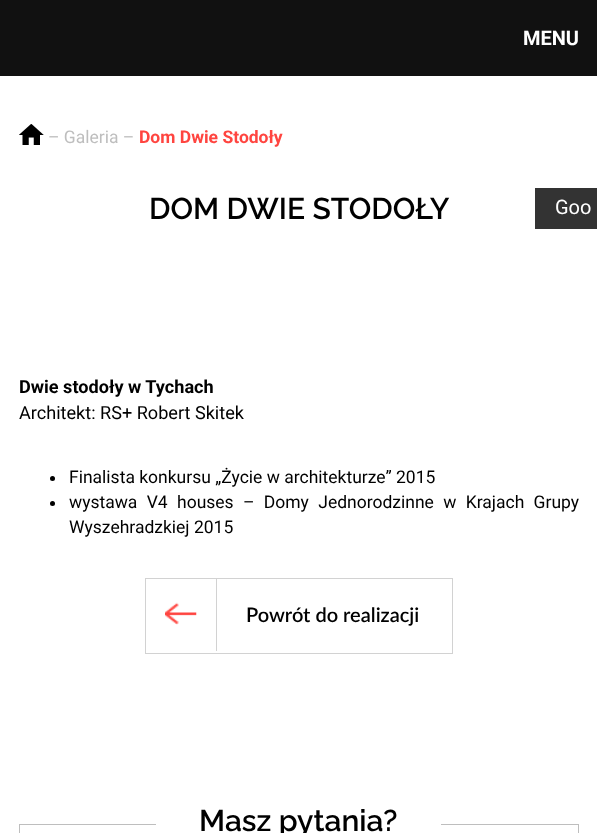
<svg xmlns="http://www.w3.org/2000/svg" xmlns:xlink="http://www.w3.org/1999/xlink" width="597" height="833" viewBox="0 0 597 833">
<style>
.cls-1{font:bold 20px Roboto;fill:#ffffff}
.cls-2{font:17.5px Roboto;fill:#bebebe}
.cls-3{font:bold 17.5px Roboto;fill:#ff4540}
.cls-4{font:600 30px Raleway;fill:#000000}
.cls-5{font:bold 18.1px Roboto;fill:#000000}
.cls-6{font:18.1px Roboto;fill:#000000}
.cls-7{font:17.5px Roboto;fill:#000000}
.cls-8{font:600 20px Lato;fill:#000000}
.cls-9{font:20px Roboto;fill:#ffffff}
</style>
<rect width="100%" height="100%" fill="#ffffff"/>
<rect fill="#111111" x="0" y="0" width="597" height="76"/>
<image xlink:href="image0.png" x="19" y="124" width="25" height="21"/>
<circle fill="#000000" cx="52.5" cy="478.5" r="2.5"/>
<circle fill="#000000" cx="52.5" cy="503.5" r="2.5"/>
<rect fill="none" stroke="#d2d2d2" x="145.5" y="578.5" width="307" height="75"/>
<image xlink:href="image1.png" x="165" y="602" width="32" height="23"/>
<rect fill="#d2d2d2" x="216" y="579" width="1" height="72"/>
<rect fill="#333333" x="535" y="188" width="62" height="41"/>
<rect fill="#bebebe" x="19" y="824" width="560" height="1"/>
<rect fill="#ffffff" x="156" y="824" width="285" height="1"/>
<rect fill="#bebebe" x="19" y="825" width="1" height="8"/>
<rect fill="#bebebe" x="578" y="825" width="1" height="8"/>
<text class="cls-1" x="523" y="45">MENU</text>
<text class="cls-2" x="48" y="143">– Galeria –</text>
<text class="cls-3" x="139" y="143">Dom Dwie Stodoły</text>
<text class="cls-4" x="149" y="219">DOM DWIE STODOŁY</text>
<text class="cls-5" x="19" y="393">Dwie stodoły w Tychach</text>
<text class="cls-6" x="19" y="419">Architekt: RS+ Robert Skitek</text>
<text class="cls-7"><tspan x="69" y="483">Finalista konkursu „Życie w architekturze” 2015</tspan><tspan x="69" y="508" word-spacing="5">wystawa V4 houses – Domy Jednorodzinne w Krajach Grupy</tspan><tspan x="69" y="533">Wyszehradzkiej 2015</tspan></text>
<text class="cls-8" x="246" y="622">Powrót do realizacji</text>
<text class="cls-9" x="555" y="214">Goo</text>
<text class="cls-4" x="199" y="831">Masz pytania?</text>
</svg>
